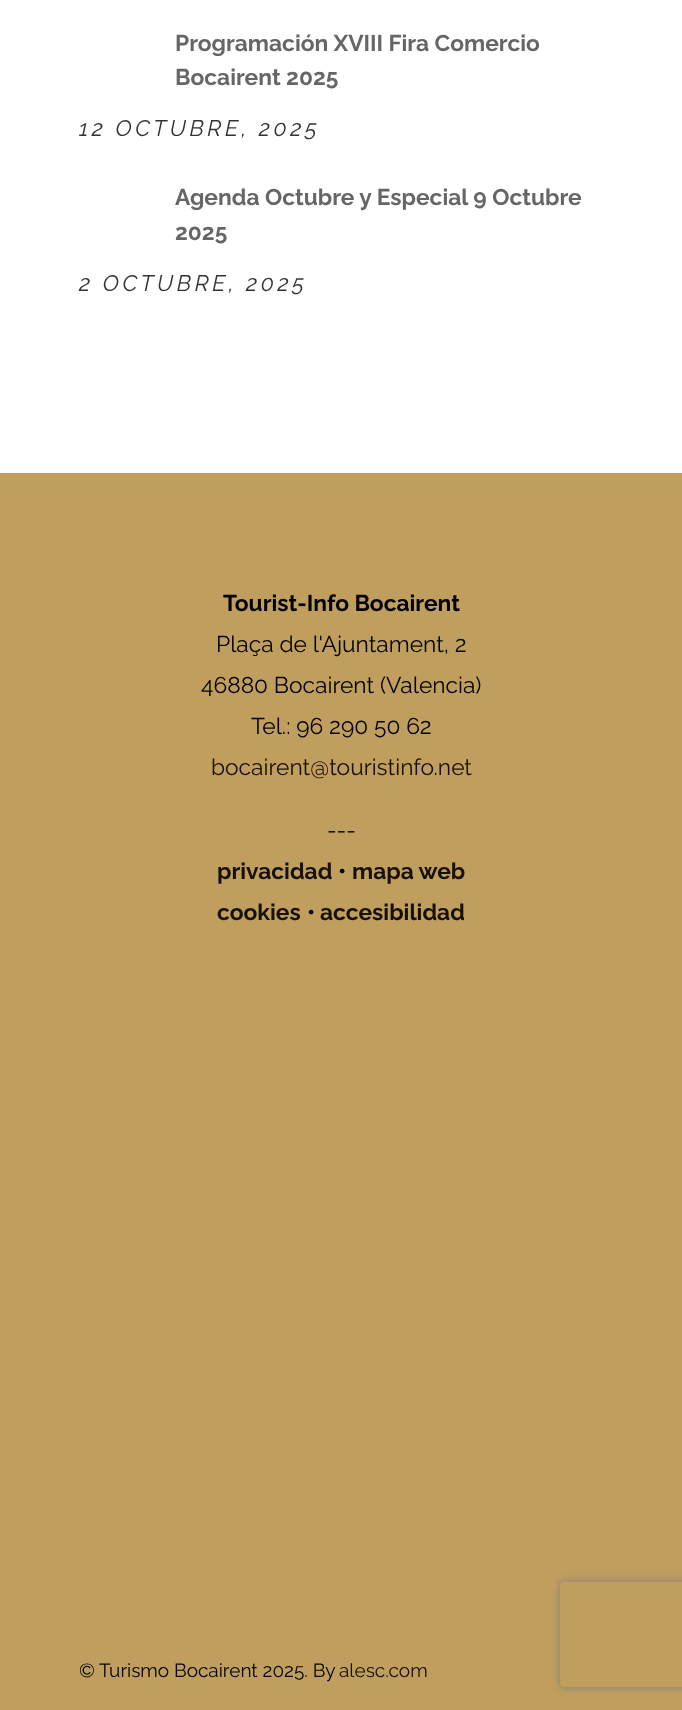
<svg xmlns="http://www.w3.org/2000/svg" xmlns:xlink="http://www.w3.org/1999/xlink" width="682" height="1710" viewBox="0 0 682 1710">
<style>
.cls-1{font:bold 22.75px Raleway;fill:#666666}
.cls-2{font:italic 100 22.4px Raleway;letter-spacing:3.5px;fill:#333333}
.cls-3{font:bold 22.75px Raleway;fill:#000000}
.cls-4{font:22.75px Raleway;fill:#000000}
.cls-5{font:22.75px Raleway;fill:#171002}
.cls-6{font:bold 22.75px Raleway;fill:#171002}
.cls-7{font:19px Raleway;fill:#000000}
.cls-8{font:19px Raleway;fill:#171002}
</style>
<defs>
<clipPath id="clip1"><path d="M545 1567H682V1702H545ZM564 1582H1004C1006 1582 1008 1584 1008 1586V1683C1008 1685 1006 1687 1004 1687H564C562 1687 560 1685 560 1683V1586C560 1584 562 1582 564 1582Z" clip-rule="evenodd"/></clipPath>
</defs>
<rect width="100%" height="100%" fill="#ffffff"/>
<rect fill="#c09e5e" x="0" y="473" width="682" height="1237"/>
<g clip-path="url(#clip1)">
<rect fill="#808080" filter="blur(4.5px)" x="560" y="1582" width="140" height="105" rx="4"/>
</g>
<text class="cls-1"><tspan x="175" y="51">Programación XVIII Fira Comercio</tspan><tspan x="175" y="85">Bocairent 2025</tspan></text>
<text class="cls-2" x="79" y="136">12 OCTUBRE, 2025</text>
<text class="cls-1"><tspan x="175" y="205">Agenda Octubre y Especial 9 Octubre</tspan><tspan x="175" y="240">2025</tspan></text>
<text class="cls-2" x="79" y="291">2 OCTUBRE, 2025</text>
<text class="cls-3" x="223" y="611">Tourist-Info Bocairent</text>
<text class="cls-4" x="216" y="652">Plaça de l'Ajuntament, 2</text>
<text class="cls-4" x="201" y="693">46880 Bocairent (Valencia)</text>
<text class="cls-4" x="251" y="734">Tel.: 96 290 50 62</text>
<text class="cls-5" x="211" y="775">bocairent@touristinfo.net</text>
<text class="cls-4" x="327" y="838">---</text>
<text class="cls-6" x="217" y="879">privacidad</text>
<text class="cls-3" x="338" y="879">•</text>
<text class="cls-6" x="352" y="879">mapa web</text>
<text class="cls-6" x="217" y="920">cookies</text>
<text class="cls-3" x="307" y="920">•</text>
<text class="cls-6" x="320" y="920">accesibilidad</text>
<text class="cls-7" x="79" y="1677">© Turismo Bocairent 2025. By</text>
<text class="cls-8" x="339" y="1677">alesc.com</text>
</svg>
